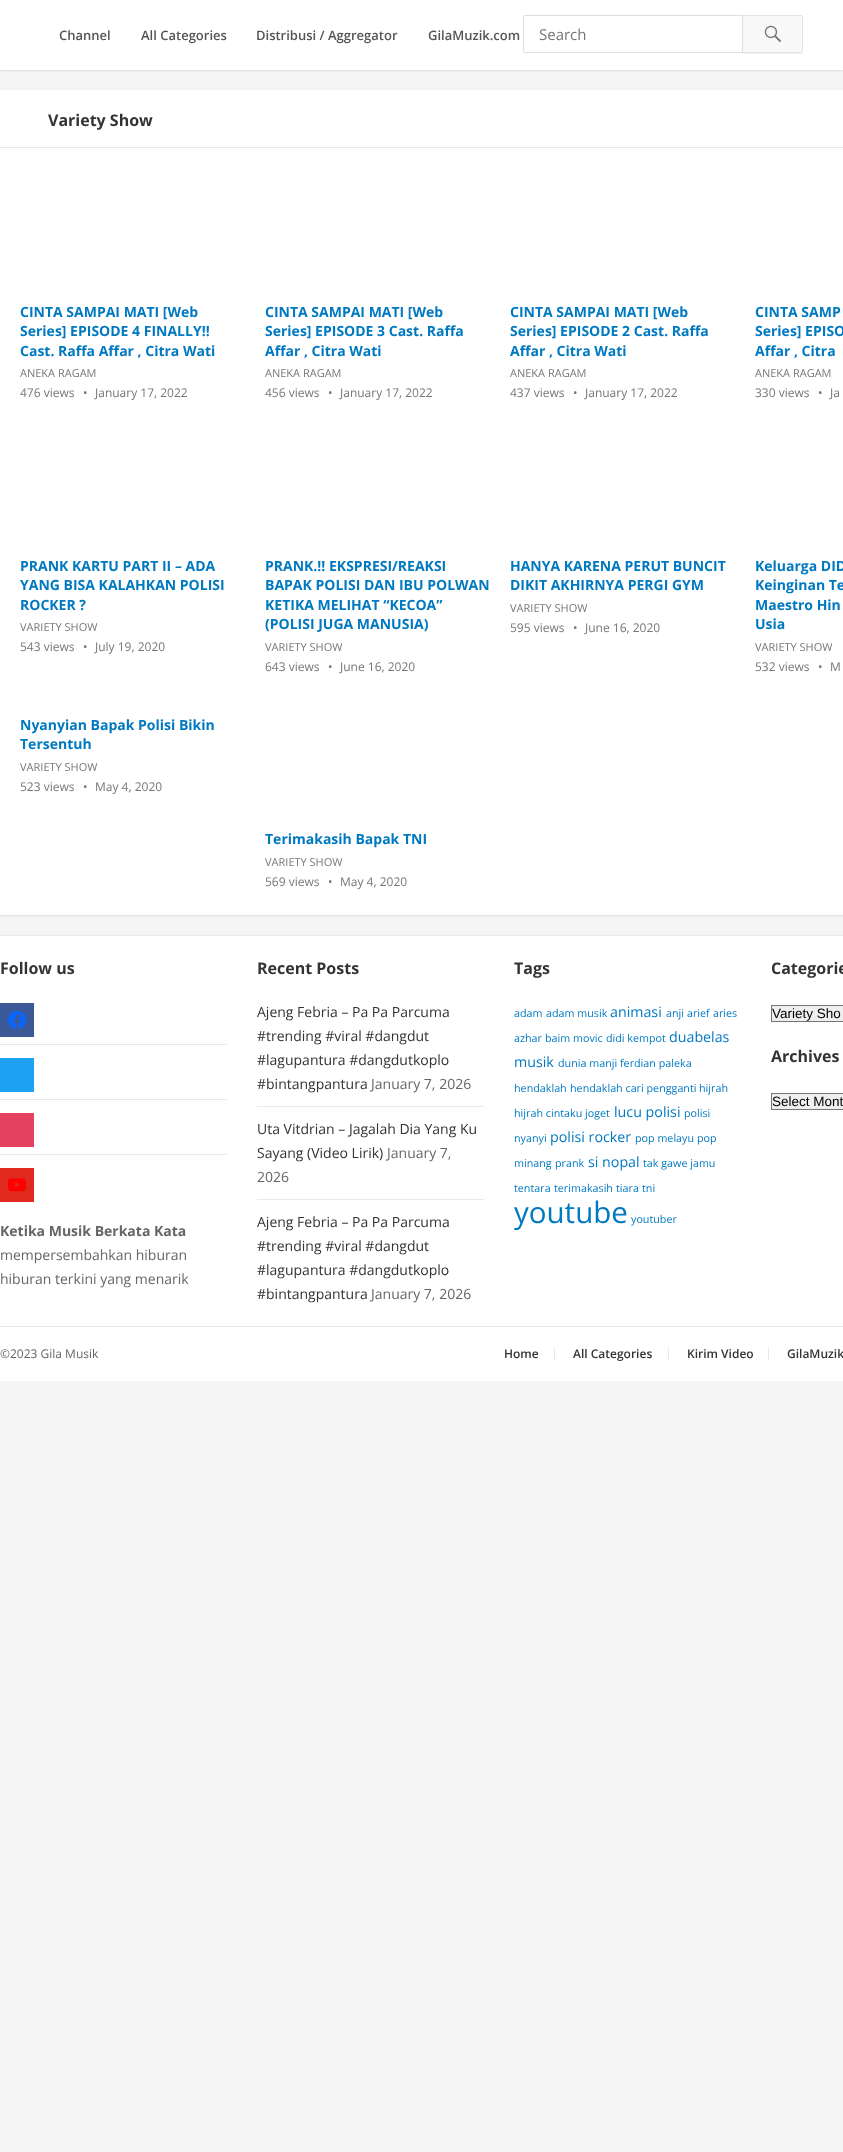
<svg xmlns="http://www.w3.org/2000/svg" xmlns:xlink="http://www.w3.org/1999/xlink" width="843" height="2152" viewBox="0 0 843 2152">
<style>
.cls-1{font:600 13px Open Sans;fill:#555555}
.cls-2{font:15px Open Sans;fill:#777777}
.cls-3{font:bold 16px Open Sans;fill:#333333}
.cls-4{font:bold 14px Open Sans;fill:#0079c1}
.cls-5{font:11px Open Sans;fill:#777777}
.cls-6{font:12px Open Sans;fill:#777777}
.cls-7{font:bold 14px Open Sans;fill:#666666}
.cls-8{font:14px Open Sans;fill:#666666}
.cls-9{font:14px Open Sans;fill:#333333}
.cls-10{font:10.75px Open Sans;fill:#0079c1}
.cls-11{font:14.25px Open Sans;fill:#0079c1}
.cls-12{font:29.5px Open Sans;fill:#0079c1}
.cls-13{font:13.5px Liberation Sans;fill:#000000}
.cls-14{font:12px Open Sans;fill:#666666}
.cls-15{font:600 12px Open Sans;fill:#333333}
</style>
<rect width="100%" height="100%" fill="#f5f5f5"/>
<rect fill="#000000" fill-opacity="0.1" filter="blur(1px)" x="0" y="1" width="843" height="70"/>
<rect fill="#ffffff" x="0" y="0" width="843" height="70"/>
<path fill="none" stroke="#dddddd" d="M525 15.5H742.5V52.5H525C524 52.5 523.5 52 523.5 51V17C523.5 16 524 15.5 525 15.5Z"/>
<path fill="#f2f2f2" d="M743 53V54H801C802 54 803 53 803 52V51C803 52 802 53 801 53Z"/>
<path fill="#f8f8f8" d="M743 15H801C802 15 803 16 803 17V51C803 52 802 53 801 53H743Z"/>
<rect fill="#e3e3e3" x="743" y="15" width="59" height="1"/>
<rect fill="#e3e3e3" x="802" y="16" width="1" height="36"/>
<rect fill="#e3e3e3" x="743" y="52" width="59" height="1"/>
<image xlink:href="image0.png" x="764" y="25" width="18" height="18"/>
<rect fill="#000000" fill-opacity="0.1" filter="blur(1px)" x="0" y="91" width="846" height="825"/>
<rect fill="#ffffff" x="0" y="90" width="843" height="825"/>
<rect fill="#e9e9e9" x="0" y="147" width="843" height="1"/>
<rect fill="#ffffff" x="0" y="936" width="843" height="445"/>
<rect fill="#e9e9e9" x="0" y="935" width="843" height="1"/>
<rect fill="#e9e9e9" x="0" y="1326" width="843" height="1"/>
<rect fill="#e9e9e9" x="0" y="1044" width="227" height="1"/>
<rect fill="#3b5998" x="0" y="1003" width="34" height="34"/>
<image xlink:href="image1.png" x="8" y="1011" width="18" height="18"/>
<rect fill="#e9e9e9" x="0" y="1099" width="227" height="1"/>
<rect fill="#1da1f2" x="0" y="1058" width="34" height="34"/>
<rect fill="#e9e9e9" x="0" y="1154" width="227" height="1"/>
<rect fill="#e4405f" x="0" y="1113" width="34" height="34"/>
<rect fill="#e02a20" x="0" y="1168" width="34" height="34"/>
<image xlink:href="image2.png" x="8" y="1178" width="18" height="14"/>
<rect fill="#e9e9e9" x="257" y="1106" width="227" height="1"/>
<rect fill="#e9e9e9" x="257" y="1199" width="227" height="1"/>
<rect fill="#efefef" stroke="#767676" x="771.5" y="1005.5" width="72" height="16"/>
<rect fill="#efefef" stroke="#767676" x="771.5" y="1093.5" width="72" height="16"/>
<rect fill="#e9e9e9" x="554" y="1348" width="1" height="12"/>
<rect fill="#e9e9e9" x="668" y="1348" width="1" height="12"/>
<rect fill="#e9e9e9" x="768" y="1348" width="1" height="12"/>
<text class="cls-1" x="59" y="40">Channel</text>
<text class="cls-1" x="141" y="40">All Categories</text>
<text class="cls-1" x="256" y="40">Distribusi / Aggregator</text>
<text class="cls-1" x="428" y="40">GilaMuzik.com</text>
<text class="cls-2" x="539" y="40">Search</text>
<text class="cls-3" x="48" y="126">Variety Show</text>
<text class="cls-4"><tspan x="20" y="317">CINTA SAMPAI MATI [Web</tspan><tspan x="20" y="336">Series] EPISODE 4 FINALLY!!</tspan><tspan x="20" y="356">Cast. Raffa Affar , Citra Wati</tspan></text>
<text class="cls-5" x="20" y="377">ANEKA RAGAM</text>
<text class="cls-6" x="20" y="397">476 views</text>
<text class="cls-6" x="83" y="397">•</text>
<text class="cls-6" x="95" y="397">January 17, 2022</text>
<text class="cls-4"><tspan x="265" y="317">CINTA SAMPAI MATI [Web</tspan><tspan x="265" y="336">Series] EPISODE 3 Cast. Raffa</tspan><tspan x="265" y="356">Affar , Citra Wati</tspan></text>
<text class="cls-5" x="265" y="377">ANEKA RAGAM</text>
<text class="cls-6" x="265" y="397">456 views</text>
<text class="cls-6" x="328" y="397">•</text>
<text class="cls-6" x="340" y="397">January 17, 2022</text>
<text class="cls-4"><tspan x="510" y="317">CINTA SAMPAI MATI [Web</tspan><tspan x="510" y="336">Series] EPISODE 2 Cast. Raffa</tspan><tspan x="510" y="356">Affar , Citra Wati</tspan></text>
<text class="cls-5" x="510" y="377">ANEKA RAGAM</text>
<text class="cls-6" x="510" y="397">437 views</text>
<text class="cls-6" x="573" y="397">•</text>
<text class="cls-6" x="585" y="397">January 17, 2022</text>
<text class="cls-4"><tspan x="755" y="317">CINTA SAMP</tspan><tspan x="755" y="336">Series] EPISO</tspan><tspan x="755" y="356">Affar , Citra</tspan></text>
<text class="cls-5" x="755" y="377">ANEKA RAGAM</text>
<text class="cls-6" x="755" y="397">330 views</text>
<text class="cls-6" x="818" y="397">•</text>
<text class="cls-6" x="830" y="397">Ja</text>
<text class="cls-4"><tspan x="20" y="571">PRANK KARTU PART II – ADA</tspan><tspan x="20" y="590">YANG BISA KALAHKAN POLISI</tspan><tspan x="20" y="610">ROCKER ?</tspan></text>
<text class="cls-5" x="20" y="631">VARIETY SHOW</text>
<text class="cls-6" x="20" y="651">543 views</text>
<text class="cls-6" x="83" y="651">•</text>
<text class="cls-6" x="95" y="651">July 19, 2020</text>
<text class="cls-4"><tspan x="265" y="571">PRANK.!! EKSPRESI/REAKSI</tspan><tspan x="265" y="590">BAPAK POLISI DAN IBU POLWAN</tspan><tspan x="265" y="610">KETIKA MELIHAT “KECOA”</tspan><tspan x="265" y="629">(POLISI JUGA MANUSIA)</tspan></text>
<text class="cls-5" x="265" y="651">VARIETY SHOW</text>
<text class="cls-6" x="265" y="671">643 views</text>
<text class="cls-6" x="328" y="671">•</text>
<text class="cls-6" x="340" y="671">June 16, 2020</text>
<text class="cls-4"><tspan x="510" y="571">HANYA KARENA PERUT BUNCIT</tspan><tspan x="510" y="590">DIKIT AKHIRNYA PERGI GYM</tspan></text>
<text class="cls-5" x="510" y="612">VARIETY SHOW</text>
<text class="cls-6" x="510" y="632">595 views</text>
<text class="cls-6" x="573" y="632">•</text>
<text class="cls-6" x="585" y="632">June 16, 2020</text>
<text class="cls-4"><tspan x="755" y="571">Keluarga DID</tspan><tspan x="755" y="590">Keinginan Te</tspan><tspan x="755" y="610">Maestro Hin</tspan><tspan x="755" y="629">Usia</tspan></text>
<text class="cls-5" x="755" y="651">VARIETY SHOW</text>
<text class="cls-6" x="755" y="671">532 views</text>
<text class="cls-6" x="818" y="671">•</text>
<text class="cls-6" x="830" y="671">M</text>
<text class="cls-4"><tspan x="20" y="730">Nyanyian Bapak Polisi Bikin</tspan><tspan x="20" y="749">Tersentuh</tspan></text>
<text class="cls-5" x="20" y="771">VARIETY SHOW</text>
<text class="cls-6" x="20" y="791">523 views</text>
<text class="cls-6" x="83" y="791">•</text>
<text class="cls-6" x="95" y="791">May 4, 2020</text>
<text class="cls-4" x="265" y="844">Terimakasih Bapak TNI</text>
<text class="cls-5" x="265" y="866">VARIETY SHOW</text>
<text class="cls-6" x="265" y="886">569 views</text>
<text class="cls-6" x="328" y="886">•</text>
<text class="cls-6" x="340" y="886">May 4, 2020</text>
<text class="cls-3" x="0" y="974">Follow us</text>
<text class="cls-7" x="0" y="1236">Ketika Musik Berkata Kata</text>
<text class="cls-8"><tspan x="0" y="1260">mempersembahkan hiburan</tspan><tspan x="0" y="1284">hiburan terkini yang menarik</tspan></text>
<text class="cls-3" x="257" y="974">Recent Posts</text>
<text class="cls-9"><tspan x="257" y="1017">Ajeng Febria – Pa Pa Parcuma</tspan><tspan x="257" y="1041">#trending #viral #dangdut</tspan><tspan x="257" y="1065">#lagupantura #dangdutkoplo</tspan><tspan x="257" y="1089">#bintangpantura</tspan></text>
<text class="cls-8" x="371" y="1089">January 7, 2026</text>
<text class="cls-9"><tspan x="257" y="1134">Uta Vitdrian – Jagalah Dia Yang Ku</tspan><tspan x="257" y="1158">Sayang (Video Lirik)</tspan></text>
<text class="cls-8" x="387" y="1158">January 7,</text>
<text class="cls-8" x="257" y="1182">2026</text>
<text class="cls-9"><tspan x="257" y="1227">Ajeng Febria – Pa Pa Parcuma</tspan><tspan x="257" y="1251">#trending #viral #dangdut</tspan><tspan x="257" y="1275">#lagupantura #dangdutkoplo</tspan><tspan x="257" y="1299">#bintangpantura</tspan></text>
<text class="cls-8" x="371" y="1299">January 7, 2026</text>
<text class="cls-3" x="514" y="974">Tags</text>
<text class="cls-10" x="514" y="1017">adam</text>
<text class="cls-10" x="546" y="1017">adam musik</text>
<text class="cls-11" x="610" y="1017">animasi</text>
<text class="cls-10" x="666" y="1017">anji</text>
<text class="cls-10" x="687" y="1017">arief</text>
<text class="cls-10" x="713" y="1017">aries</text>
<text class="cls-10" x="514" y="1042">azhar</text>
<text class="cls-10" x="545" y="1042">baim movic</text>
<text class="cls-10" x="606" y="1042">didi kempot</text>
<text class="cls-11" x="669" y="1042">duabelas</text>
<text class="cls-11" x="514" y="1067">musik</text>
<text class="cls-10" x="558" y="1067">dunia manji</text>
<text class="cls-10" x="620" y="1067">ferdian paleka</text>
<text class="cls-10" x="514" y="1092">hendaklah</text>
<text class="cls-10" x="570" y="1092">hendaklah cari pengganti</text>
<text class="cls-10" x="699" y="1092">hijrah</text>
<text class="cls-10" x="514" y="1117">hijrah cintaku</text>
<text class="cls-10" x="585" y="1117">joget</text>
<text class="cls-11" x="614" y="1117">lucu polisi</text>
<text class="cls-10" x="684" y="1117">polisi</text>
<text class="cls-10" x="514" y="1142">nyanyi</text>
<text class="cls-11" x="550" y="1142">polisi rocker</text>
<text class="cls-10" x="635" y="1142">pop melayu</text>
<text class="cls-10" x="697" y="1142">pop</text>
<text class="cls-10" x="514" y="1167">minang</text>
<text class="cls-10" x="555" y="1167">prank</text>
<text class="cls-11" x="588" y="1167">si nopal</text>
<text class="cls-10" x="643" y="1167">tak gawe jamu</text>
<text class="cls-10" x="514" y="1192">tentara</text>
<text class="cls-10" x="554" y="1192">terimakasih</text>
<text class="cls-10" x="616" y="1192">tiara</text>
<text class="cls-10" x="642" y="1192">tni</text>
<text class="cls-12" x="514" y="1223">youtube</text>
<text class="cls-10" x="631" y="1223">youtuber</text>
<text class="cls-3" x="771" y="974">Categorie</text>
<text class="cls-13" x="772" y="1018">Variety Sho</text>
<text class="cls-3" x="771" y="1062">Archives</text>
<text class="cls-13" x="772" y="1106">Select Mont</text>
<text class="cls-14" x="0" y="1358">©2023 Gila Musik</text>
<text class="cls-15" x="504" y="1358">Home</text>
<text class="cls-15" x="573" y="1358">All Categories</text>
<text class="cls-15" x="687" y="1358">Kirim Video</text>
<text class="cls-15" x="787" y="1358">GilaMuzik</text>
</svg>
